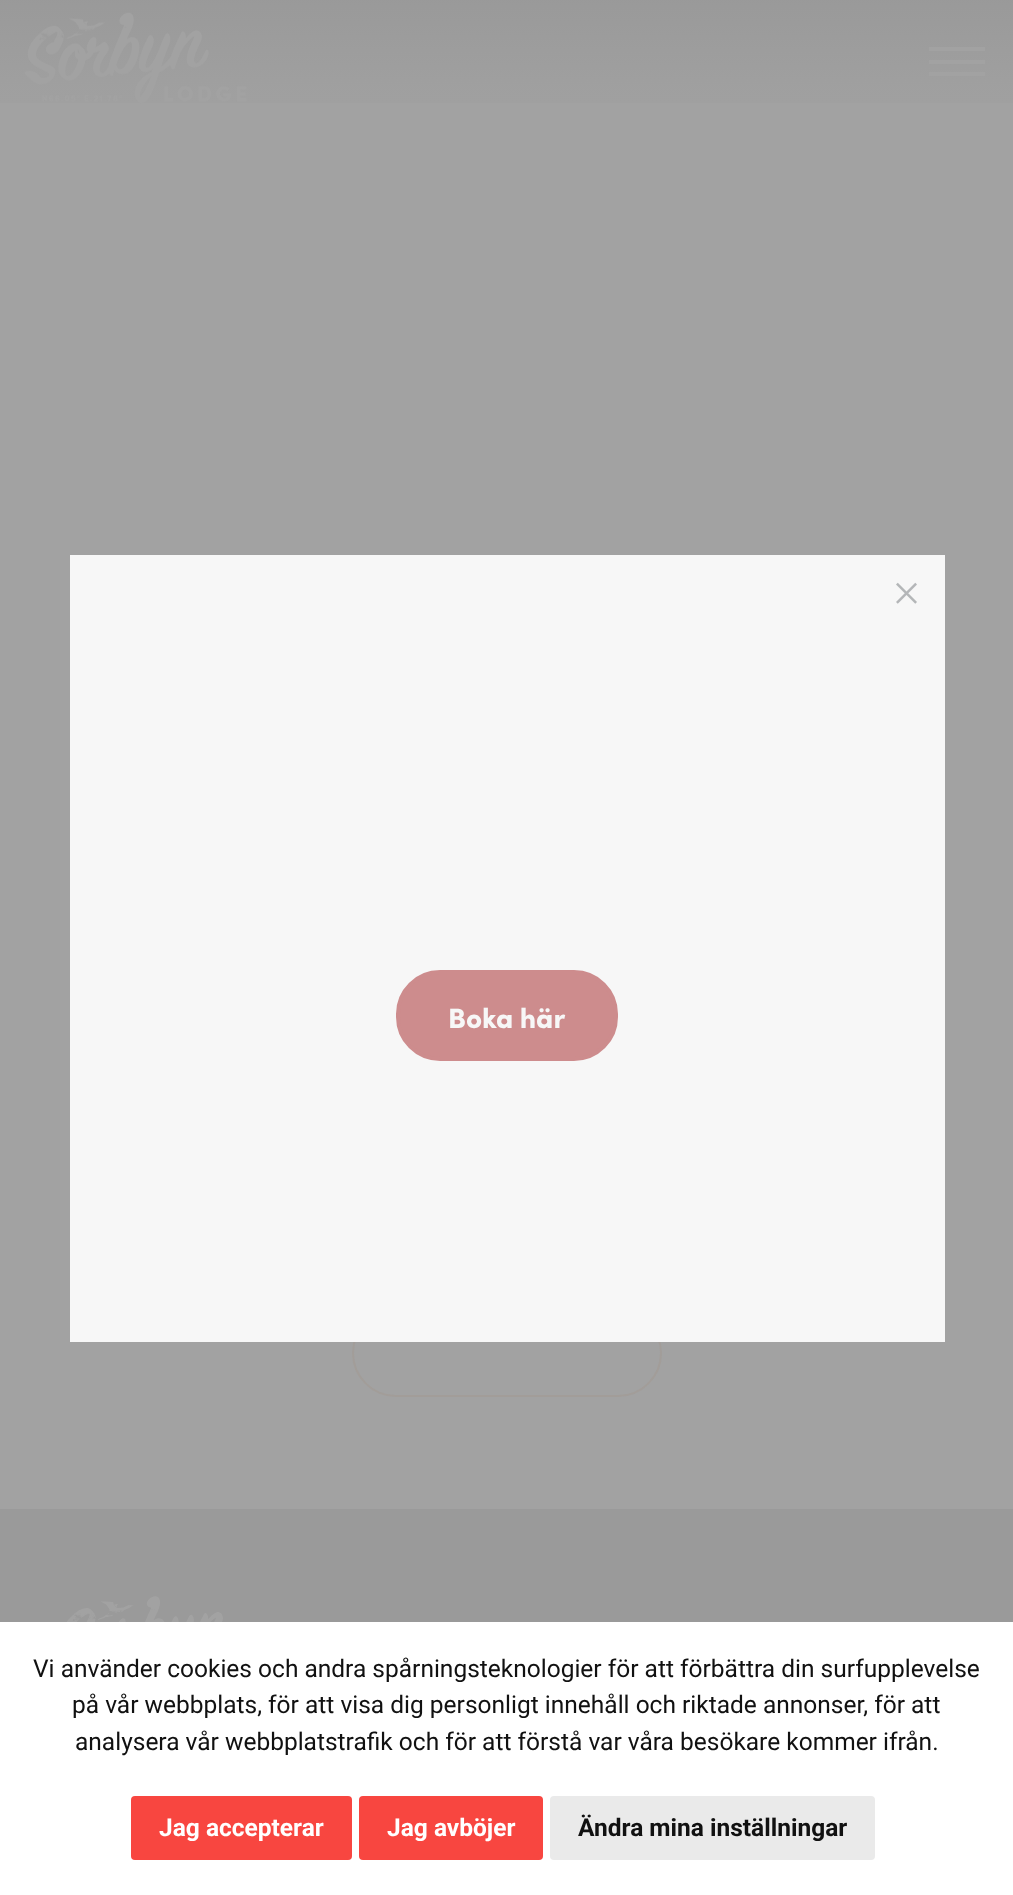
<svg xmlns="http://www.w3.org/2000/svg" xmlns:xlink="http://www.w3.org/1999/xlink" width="1013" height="1895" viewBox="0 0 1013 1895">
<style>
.cls-1{font:900 28px Sofia;fill:#f7f7f7}
.cls-2{font:24.5px Roboto;fill:#111111}
.cls-3{font:bold 24.5px Roboto;fill:#ffffff}
.cls-4{font:bold 24.5px Roboto;fill:#111111}
</style>
<defs>
<linearGradient id="g1" gradientUnits="userSpaceOnUse" x1="507" y1="0" x2="507" y2="175"><stop offset="0" stop-color="#989898" stop-opacity="0.85"/><stop offset="0.5" stop-color="#989898" stop-opacity="0.25"/><stop offset="1" stop-color="#989898" stop-opacity="0"/></linearGradient>
</defs>
<rect width="100%" height="100%" fill="#a2a2a2"/>
<rect fill="url(#g1)" x="0" y="0" width="1013" height="103"/>
<image xlink:href="image0.png" x="24" y="12" width="223" height="92"/>
<rect fill="#a2a2a2" x="929" y="47" width="56" height="4"/>
<rect fill="#a2a2a2" x="929" y="60" width="56" height="4"/>
<rect fill="#a2a2a2" x="929" y="72" width="56" height="4"/>
<rect fill="none" stroke="#a29d99" stroke-width="2" x="353" y="1310" width="308" height="86" rx="43"/>
<rect fill="#f7f7f7" x="70" y="555" width="875" height="787"/>
<image xlink:href="image1.png" x="896" y="582" width="21" height="22"/>
<rect fill="#cd8c8d" stroke="#cd8c8d" stroke-width="4" x="398" y="972" width="218" height="87" rx="42"/>
<rect fill="#9a9a9a" x="0" y="1509" width="1013" height="113"/>
<image xlink:href="image2.png" x="66" y="1596" width="157" height="26"/>
<rect fill="#ffffff" x="0" y="1622" width="1013" height="273"/>
<rect fill="#f84640" x="131" y="1796" width="221" height="64" rx="4"/>
<rect fill="#f84640" x="359" y="1796" width="184" height="64" rx="4"/>
<rect fill="#eaeaea" x="550" y="1796" width="325" height="64" rx="4"/>
<text class="cls-1" x="448" y="1028">Boka här</text>
<text class="cls-2" x="33" y="1677">Vi använder cookies och andra spårningsteknologier för att förbättra din surfupplevelse</text>
<text class="cls-2" x="72" y="1713">på vår webbplats, för att visa dig personligt innehåll och riktade annonser, för att</text>
<text class="cls-2" x="75" y="1750">analysera vår webbplatstrafik och för att förstå var våra besökare kommer ifrån.</text>
<text class="cls-3" x="159" y="1836">Jag accepterar</text>
<text class="cls-3" x="387" y="1836">Jag avböjer</text>
<text class="cls-4" x="578" y="1836">Ändra mina inställningar</text>
</svg>
